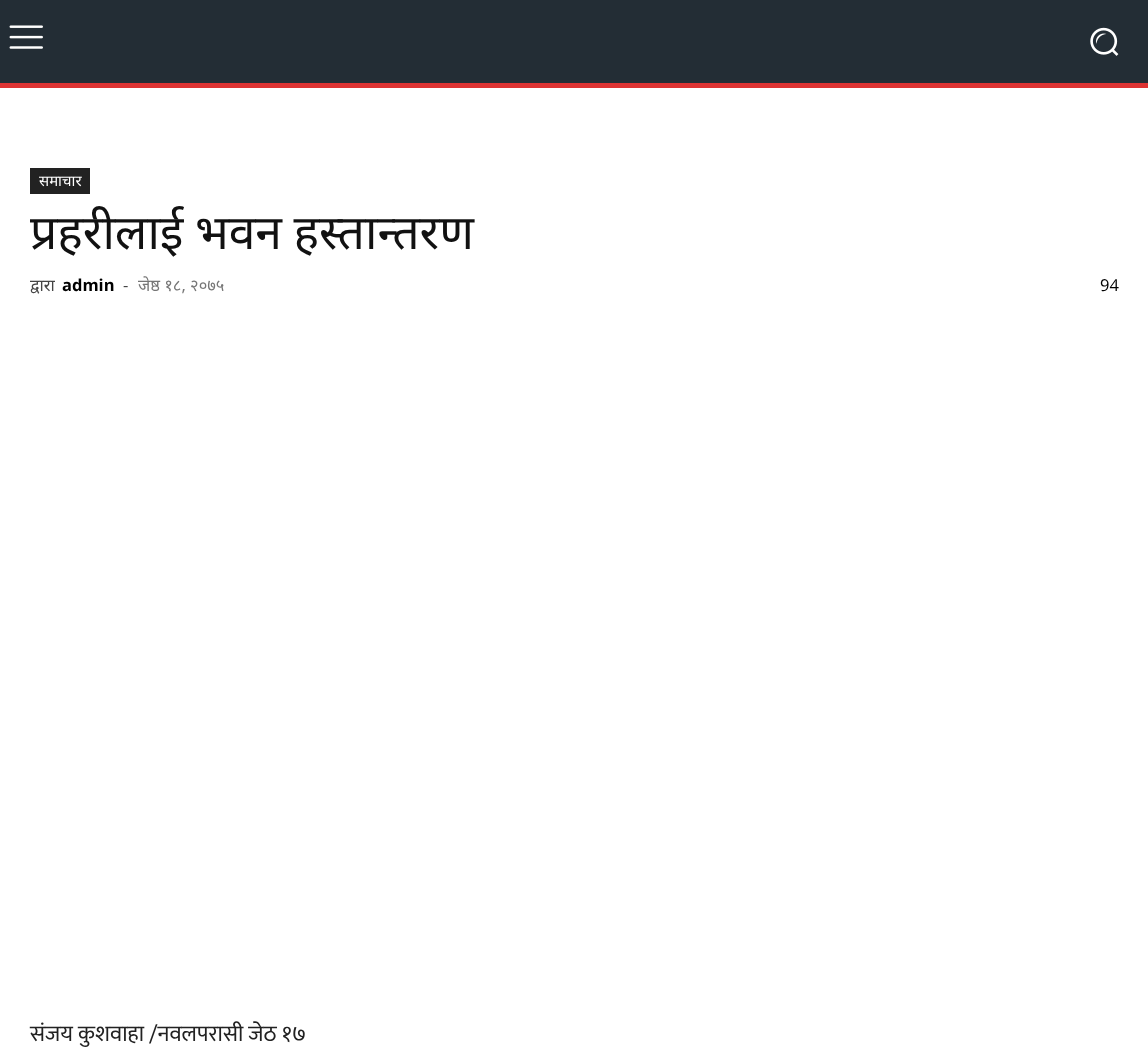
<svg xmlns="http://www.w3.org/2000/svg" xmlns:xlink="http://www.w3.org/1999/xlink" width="1148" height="1058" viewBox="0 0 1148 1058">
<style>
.cls-1{font:15px Noto Sans;fill:#ffffff}
.cls-2{font:48px Noto Sans;fill:#111111}
.cls-3{font:16.5px Noto Sans;fill:#444444}
.cls-4{font:bold 16.5px Open Sans;fill:#000000}
.cls-5{font:16.5px Open Sans;fill:#444444}
.cls-6{font:16.5px Noto Sans;fill:#767676}
.cls-7{font:16.5px Open Sans;fill:#000000}
.cls-8{font:22.5px Mukta;fill:#222222}
</style>
<rect width="100%" height="100%" fill="#ffffff"/>
<rect fill="#232d35" x="0" y="0" width="1148" height="83"/>
<image xlink:href="image0.png" x="9" y="25" width="34" height="24"/>
<image xlink:href="image1.png" x="1090" y="27" width="29" height="29"/>
<rect fill="#dd3333" x="0" y="83" width="1148" height="5"/>
<rect fill="#222222" x="30" y="168" width="60" height="26"/>
<text class="cls-1" x="39" y="186">समाचार</text>
<text class="cls-2" x="30" y="249" word-spacing="-1">प्रहरीलाई भवन हस्तान्तरण</text>
<text class="cls-3" x="30" y="291">द्वारा</text>
<text class="cls-4" x="62" y="291">admin</text>
<text class="cls-5" x="123" y="291">-</text>
<text class="cls-6" x="138" y="291">जेष्ठ १८, २०७५</text>
<text class="cls-7" x="1100" y="291">94</text>
<text class="cls-8" x="30" y="1041">संजय कुशवाहा /नवलपरासी जेठ १७</text>
</svg>
